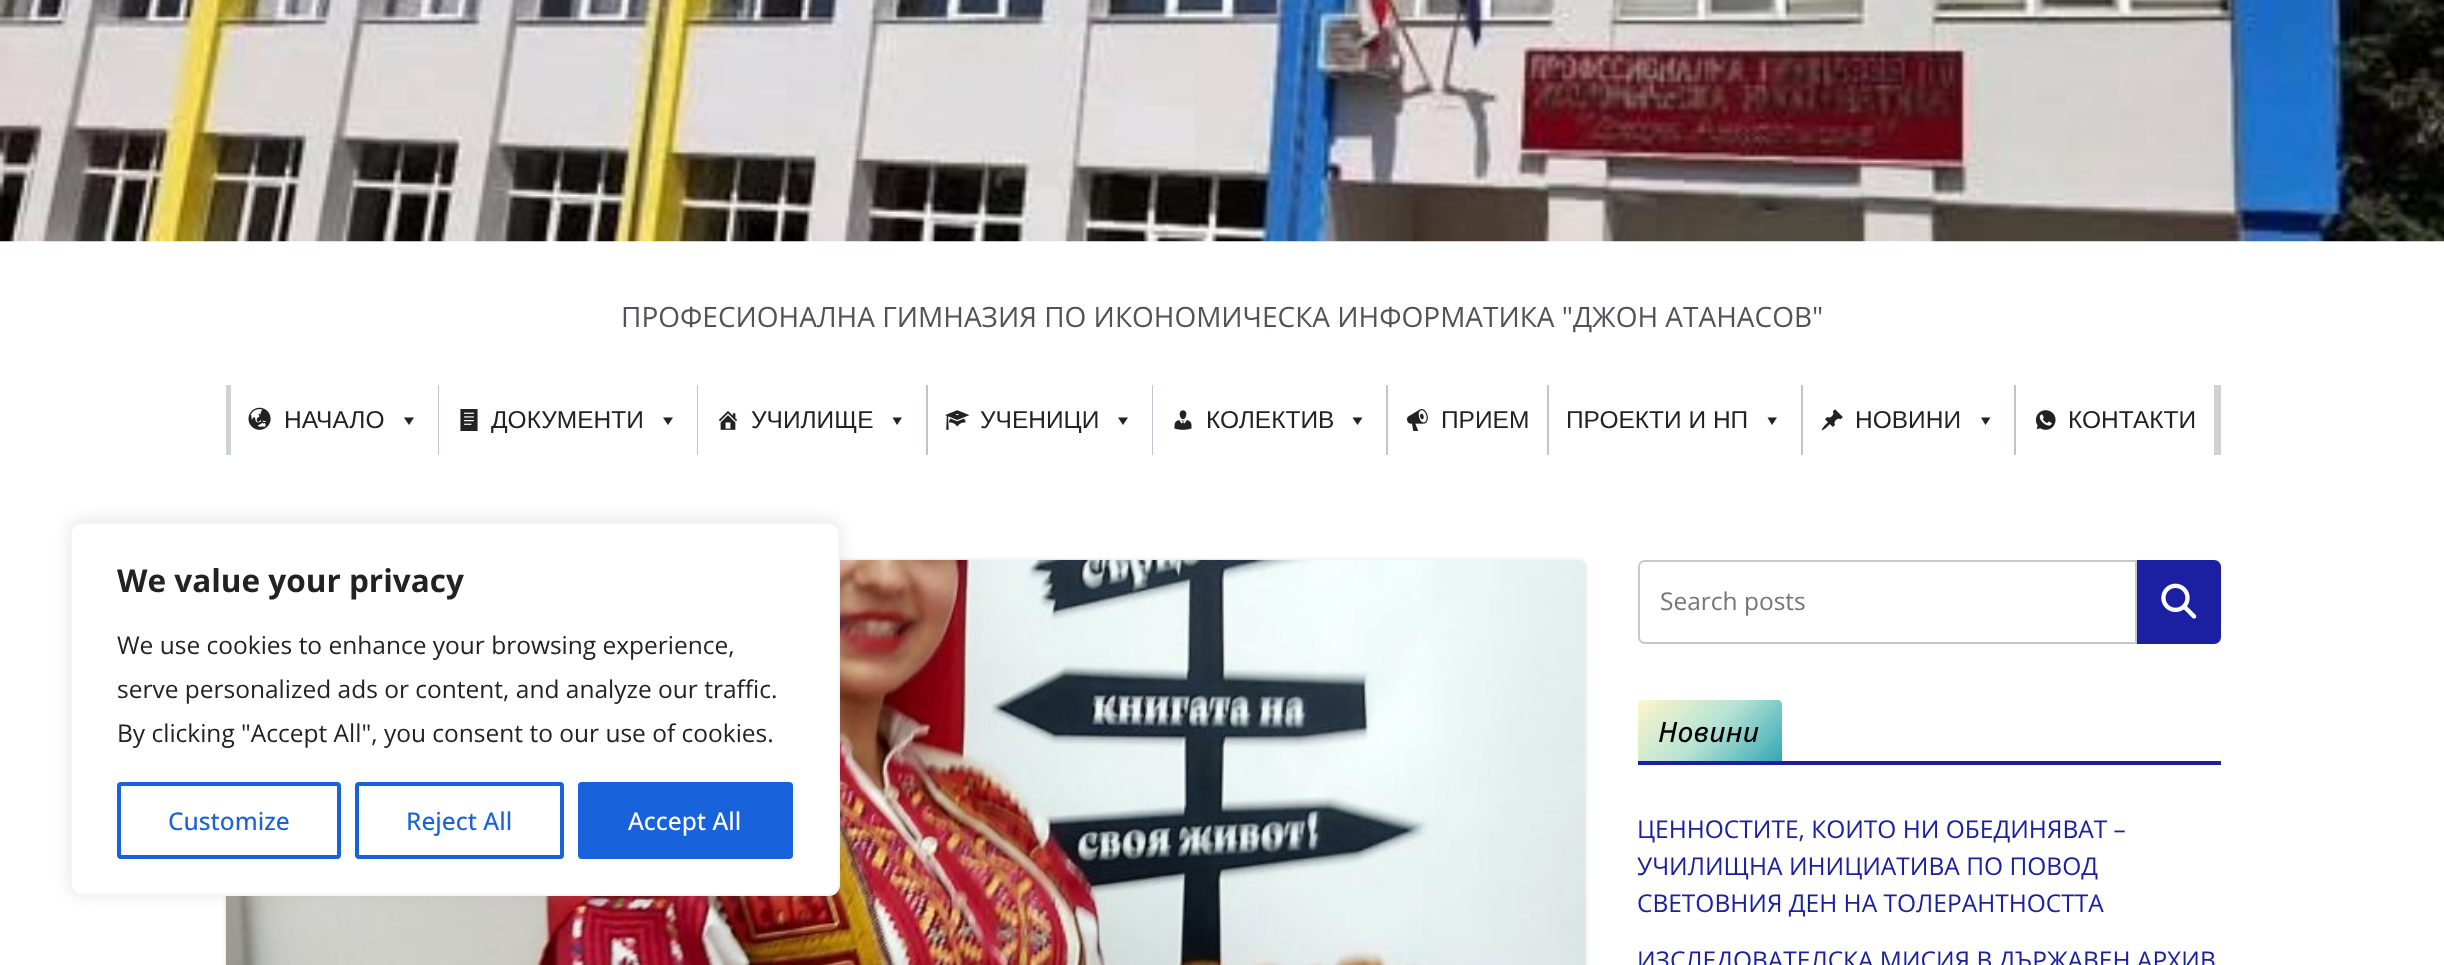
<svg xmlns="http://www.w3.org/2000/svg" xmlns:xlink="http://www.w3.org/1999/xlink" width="2444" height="965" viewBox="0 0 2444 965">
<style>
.cls-1{font:28px Open Sans;fill:#52525b}
.cls-2{font:24.5px Liberation Sans;fill:#222222}
.cls-3{font:24.5px Open Sans;fill:#757575}
.cls-4{font:italic 500 28px Open Sans;letter-spacing:0.25px;fill:#000000}
.cls-5{font:24.5px Open Sans;fill:#1b20a3}
.cls-6{font:bold 31.5px Open Sans;fill:#222222}
.cls-7{font:24.5px Open Sans;fill:#222222}
.cls-8{font:500 24.5px Open Sans;fill:#1863dc}
.cls-9{font:500 24.5px Open Sans;fill:#ffffff}
</style>
<defs>
<linearGradient id="g1" gradientUnits="userSpaceOnUse" x1="1659" y1="679" x2="1761" y2="782"><stop offset="0" stop-color="#fff5cb"/><stop offset="0.5" stop-color="#b6e3d4"/><stop offset="1" stop-color="#33a7b5"/></linearGradient>
</defs>
<rect width="100%" height="100%" fill="#ffffff"/>
<image xlink:href="image0.png" x="0" y="0" width="2444" height="242"/>
<rect fill="#d0d3d6" x="226" y="385" width="1995" height="70"/>
<rect fill="#c1c2d5" x="1152" y="385" width="1" height="70"/>
<rect fill="#c1c2d5" x="697" y="385" width="1" height="70"/>
<rect fill="#c1c2d5" x="438" y="385" width="1" height="70"/>
<rect fill="#ffffff" x="231" y="385" width="207" height="70"/>
<image xlink:href="image1.png" x="248" y="407" width="23" height="23"/>
<path fill="#222222" d="M414 417.5L409 425L404 417.5Z"/>
<rect fill="#ffffff" x="439" y="385" width="258" height="70"/>
<image xlink:href="image2.png" x="460" y="409" width="18" height="22"/>
<path fill="#222222" d="M673 417.5L668 425L663 417.5Z"/>
<rect fill="#ffffff" x="698" y="385" width="228" height="70"/>
<image xlink:href="image3.png" x="718" y="411" width="20" height="19"/>
<path fill="#222222" d="M902 417.5L897 425L892.5 417.5Z"/>
<rect fill="#c1c2d5" x="926" y="385" width="2" height="70"/>
<rect fill="#ffffff" x="928" y="385" width="224" height="70"/>
<image xlink:href="image4.png" x="945" y="410" width="25" height="20"/>
<path fill="#222222" d="M1128 417.5L1123 425L1118 417.5Z"/>
<rect fill="#ffffff" x="1153" y="385" width="233" height="70"/>
<image xlink:href="image5.png" x="1174" y="410" width="18" height="20"/>
<path fill="#222222" d="M1362.5 417.5L1357.5 425L1352.5 417.5Z"/>
<rect fill="#c1c2d5" x="1386" y="385" width="2" height="70"/>
<rect fill="#ffffff" x="1388" y="385" width="159" height="70"/>
<image xlink:href="image6.png" x="1407" y="409" width="21" height="22"/>
<rect fill="#c1c2d5" x="1547" y="385" width="2" height="70"/>
<rect fill="#ffffff" x="1549" y="385" width="252" height="70"/>
<path fill="#222222" d="M1777 417.5L1772 425L1767.5 417.5Z"/>
<rect fill="#c1c2d5" x="1801" y="385" width="2" height="70"/>
<rect fill="#ffffff" x="1803" y="385" width="211" height="70"/>
<image xlink:href="image7.png" x="1821" y="409" width="22" height="22"/>
<path fill="#222222" d="M1990.5 417.5L1985.5 425L1981 417.5Z"/>
<rect fill="#c1c2d5" x="2014" y="385" width="2" height="70"/>
<rect fill="#ffffff" x="2016" y="385" width="198" height="70"/>
<image xlink:href="image8.png" x="2035" y="410" width="21" height="20"/>
<rect fill="#e4e4e7" filter="blur(2px)" x="226" y="560" width="1360" height="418" rx="7"/>
<image xlink:href="image9.png" x="225" y="559" width="1361" height="406"/>
<path fill="none" stroke="#c7c7c7" stroke-width="2" d="M1645 561H2136V643H1645C1641.5 643 1639 640.5 1639 637V567C1639 563.5 1641.5 561 1645 561Z"/>
<path fill="#1b20a3" d="M2137 560H2214C2218 560 2221 563 2221 567V637C2221 641 2218 644 2214 644H2137Z"/>
<image xlink:href="image10.png" x="2161" y="583" width="36" height="36"/>
<rect fill="#1b20a3" x="1638" y="761" width="583" height="4"/>
<path fill="url(#g1)" d="M1642 700H1778C1780 700 1782 702 1782 704V761H1638V704C1638 702 1640 700 1642 700Z"/>
<rect fill="#acabab" fill-opacity="0.3" filter="blur(9px)" x="70" y="520" width="770" height="374" rx="11"/>
<rect fill="#ffffff" stroke="#f4f4f4" stroke-width="2" x="71" y="523" width="768" height="372" rx="10"/>
<rect fill="none" stroke="#1863dc" stroke-width="4" x="119" y="784" width="220" height="73" rx="2"/>
<rect fill="none" stroke="#1863dc" stroke-width="4" x="357" y="784" width="205" height="73" rx="2"/>
<rect fill="#1863dc" stroke="#1863dc" stroke-width="4" x="580" y="784" width="211" height="73" rx="2"/>
<text class="cls-1" x="621" y="327">ПРОФЕСИОНАЛНА ГИМНАЗИЯ ПО ИКОНОМИЧЕСКА ИНФОРМАТИКА "ДЖОН АТАНАСОВ"</text>
<text class="cls-2" x="284" y="428">НАЧАЛО</text>
<text class="cls-2" x="491" y="428">ДОКУМЕНТИ</text>
<text class="cls-2" x="751" y="428">УЧИЛИЩЕ</text>
<text class="cls-2" x="980" y="428">УЧЕНИЦИ</text>
<text class="cls-2" x="1206" y="428">КОЛЕКТИВ</text>
<text class="cls-2" x="1441" y="428">ПРИЕМ</text>
<text class="cls-2" x="1566" y="428">ПРОЕКТИ И НП</text>
<text class="cls-2" x="1855" y="428">НОВИНИ</text>
<text class="cls-2" x="2068" y="428">КОНТАКТИ</text>
<text class="cls-3" x="1660" y="610">Search posts</text>
<text class="cls-4" x="1658" y="742">Новини</text>
<text class="cls-5"><tspan x="1637" y="838">ЦЕННОСТИТЕ, КОИТО НИ ОБЕДИНЯВАТ –</tspan><tspan x="1637" y="875">УЧИЛИЩНА ИНИЦИАТИВА ПО ПОВОД</tspan><tspan x="1637" y="912">СВЕТОВНИЯ ДЕН НА ТОЛЕРАНТНОСТТА</tspan></text>
<text class="cls-5" x="1637" y="969">ИЗСЛЕДОВАТЕЛСКА МИСИЯ В ДЪРЖАВЕН АРХИВ</text>
<text class="cls-6" x="117" y="592">We value your privacy</text>
<text class="cls-7"><tspan x="117" y="654">We use cookies to enhance your browsing experience,</tspan><tspan x="117" y="698">serve personalized ads or content, and analyze our traffic.</tspan><tspan x="117" y="742">By clicking "Accept All", you consent to our use of cookies.</tspan></text>
<text class="cls-8" x="168" y="830">Customize</text>
<text class="cls-8" x="406" y="830">Reject All</text>
<text class="cls-9" x="628" y="830">Accept All</text>
</svg>
